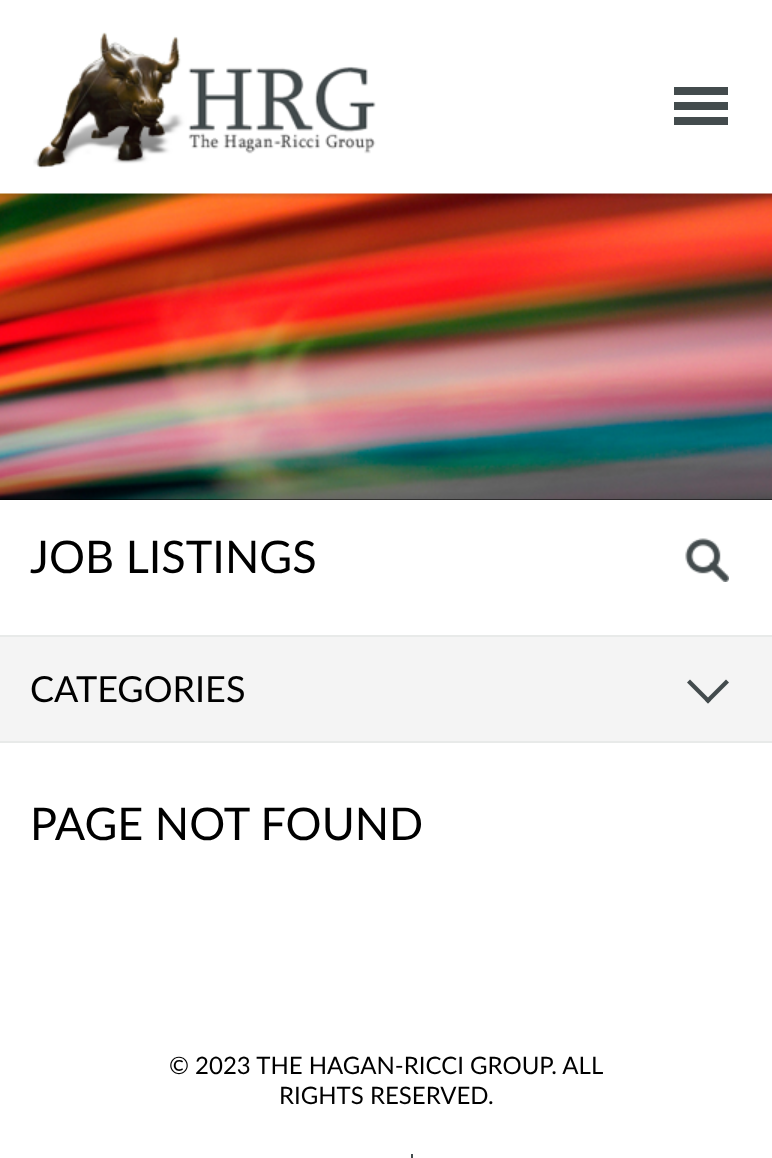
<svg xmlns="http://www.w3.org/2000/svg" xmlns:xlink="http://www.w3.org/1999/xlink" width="772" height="1158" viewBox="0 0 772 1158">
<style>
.cls-1{font:45px Lato;fill:#000000}
.cls-2{font:36px Lato;fill:#000000}
.cls-3{font:24px Lato;fill:#000000}
</style>
<rect width="100%" height="100%" fill="#ffffff"/>
<image xlink:href="image0.png" x="33" y="32" width="343" height="137"/>
<rect fill="#434b4d" x="674" y="87" width="54" height="8"/>
<rect fill="#434b4d" x="674" y="102" width="54" height="8"/>
<rect fill="#434b4d" x="674" y="117" width="54" height="8"/>
<rect fill="#000000" x="0" y="499" width="772" height="1"/>
<image xlink:href="image1.png" x="0" y="193" width="772" height="307"/>
<image xlink:href="image2.png" x="685" y="538" width="44" height="44"/>
<rect fill="#f4f4f4" x="0" y="637" width="772" height="104"/>
<rect fill="#e8eae9" x="0" y="635" width="772" height="2"/>
<rect fill="#e8eae9" x="0" y="741" width="772" height="2"/>
<path fill="#434b4d" d="M726 679.5L729 682.5L708 703.5L705 700.5Z"/>
<path fill="#434b4d" d="M690 679.5L711 700.5L708 703.5L687 682.5Z"/>
<rect fill="#434b4d" x="411" y="1154" width="2" height="4"/>
<text class="cls-1" x="30" y="573">JOB LISTINGS</text>
<text class="cls-2" x="30" y="702">CATEGORIES</text>
<text class="cls-1" x="30" y="840">PAGE NOT FOUND</text>
<text class="cls-3" x="169" y="1074">© 2023 THE HAGAN-RICCI GROUP. ALL</text>
<text class="cls-3" x="279" y="1104">RIGHTS RESERVED.</text>
</svg>
